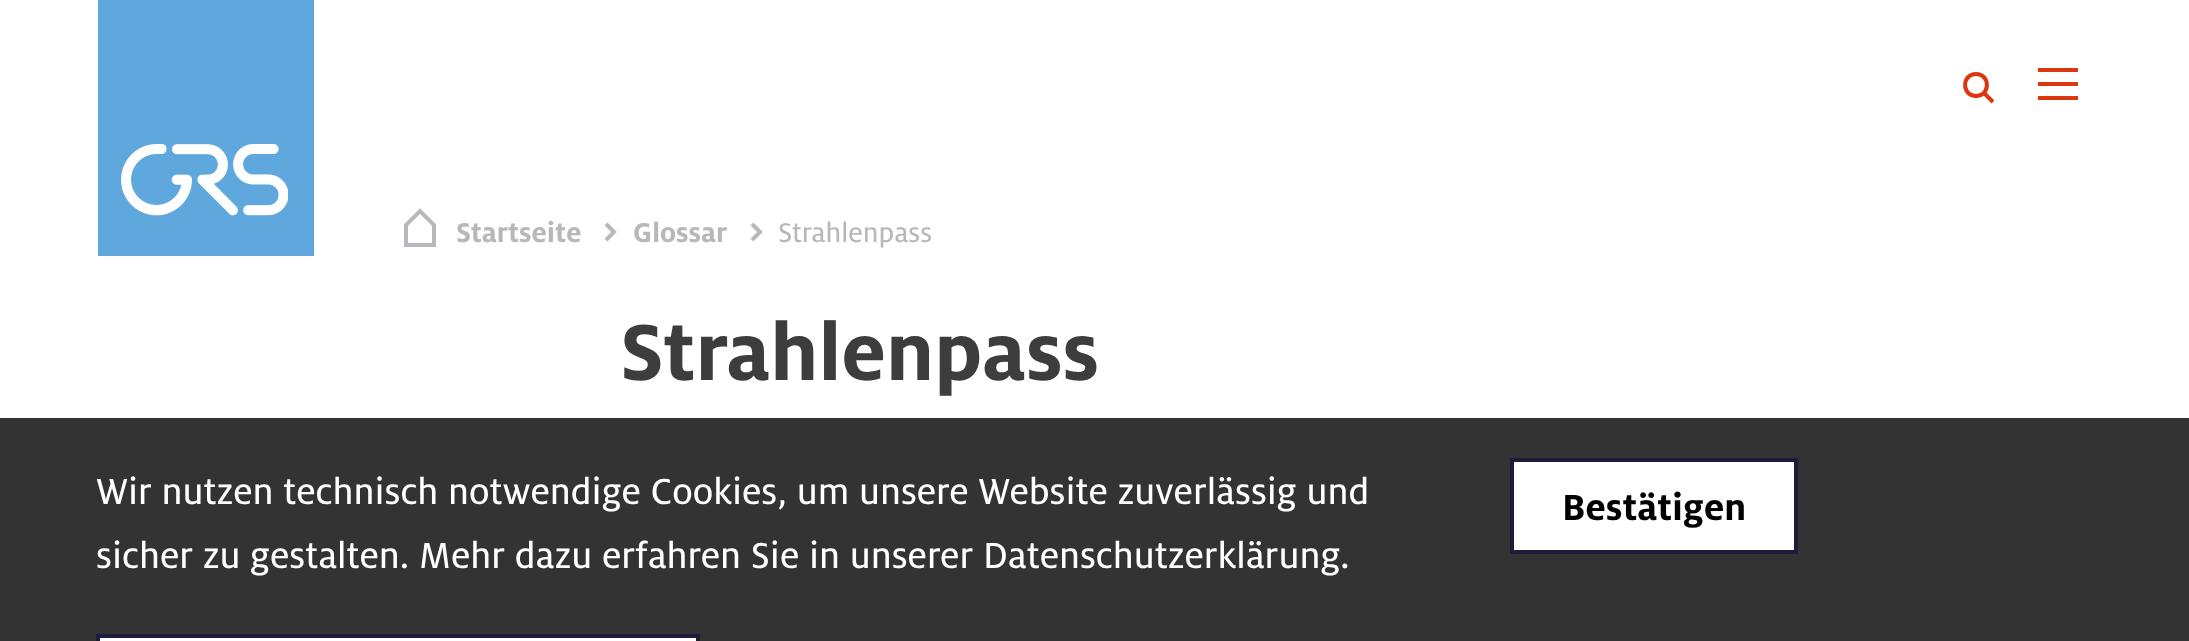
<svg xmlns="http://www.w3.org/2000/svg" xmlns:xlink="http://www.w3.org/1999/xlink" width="2189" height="641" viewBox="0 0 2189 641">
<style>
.cls-1{font:bold 30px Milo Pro;fill:#b7b7bd}
.cls-2{font:30px Milo Pro;fill:#b7b7bd}
.cls-3{font:bold 88px Milo Pro;fill:#3d3d3d}
.cls-4{font:40px Milo Pro;fill:#ffffff}
.cls-5{font:bold 40px Milo Pro;fill:#000000}
</style>
<rect width="100%" height="100%" fill="#ffffff"/>
<rect fill="#5fa8dd" x="98" y="0" width="216" height="256"/>
<image xlink:href="image0.png" x="121" y="144" width="167" height="72"/>
<path fill="none" stroke="#dc360e" stroke-width="4" d="M1976 96C1990.5 96 1990.5 74 1976 74C1961.5 74 1961.5 96 1976 96ZM1993 102L1983 92"/>
<rect fill="#dc360e" x="2038" y="68" width="40" height="4"/>
<rect fill="#dc360e" x="2038" y="82" width="40" height="4"/>
<rect fill="#dc360e" x="2038" y="96" width="40" height="4"/>
<path fill="none" stroke="#b7b7bd" stroke-width="4" d="M434 225V245H406V225L420 211Z"/>
<path fill="none" stroke="#b7b7bd" stroke-width="4" d="M606 224L614 232L606 240"/>
<path fill="none" stroke="#b7b7bd" stroke-width="4" d="M752 224L760 232L752 240"/>
<rect fill="#333333" x="0" y="418" width="2189" height="223"/>
<rect fill="#ffffff" stroke="#1d1d3b" stroke-width="4" x="98" y="636" width="600" height="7"/>
<rect fill="#ffffff" stroke="#1d1d3b" stroke-width="4" x="1512" y="460" width="284" height="92"/>
<text class="cls-1" x="456" y="242">Startseite</text>
<text class="cls-1" x="633" y="242">Glossar</text>
<text class="cls-2" x="778" y="242">Strahlenpass</text>
<text class="cls-3" x="620" y="380">Strahlenpass</text>
<text class="cls-4"><tspan x="96" y="504">Wir nutzen technisch notwendige Cookies, um unsere Website zuverlässig und</tspan><tspan x="96" y="568">sicher zu gestalten. Mehr dazu erfahren Sie in unserer Datenschutzerklärung.</tspan></text>
<text class="cls-5" x="1562" y="520">Bestätigen</text>
</svg>
